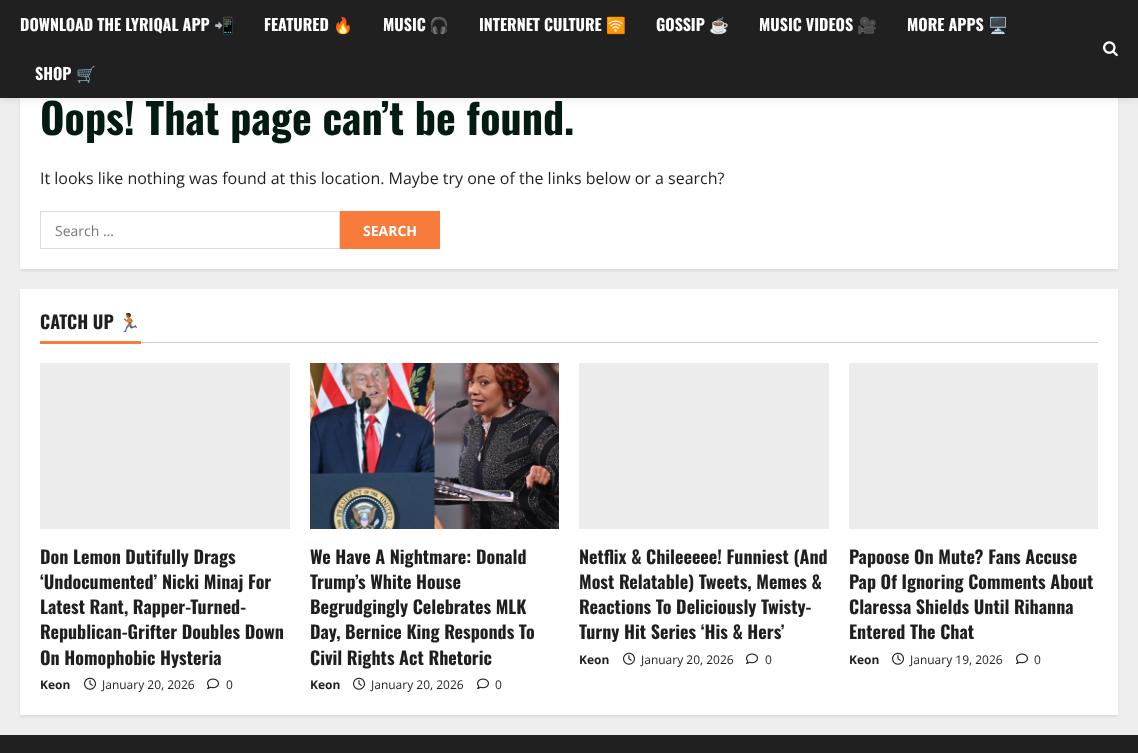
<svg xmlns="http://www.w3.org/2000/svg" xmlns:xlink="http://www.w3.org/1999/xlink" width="1138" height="753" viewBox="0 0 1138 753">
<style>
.cls-1{font:bold 16px Oswald;fill:#ffffff}
.cls-2{font:bold 16px Noto Color Emoji;fill:#ffffff}
.cls-3{font:bold 42px Oswald;fill:#031b11}
.cls-4{font:16px Open Sans;fill:#1f1f1f}
.cls-5{font:14px Open Sans;fill:#757575}
.cls-6{font:bold 14px Open Sans;fill:#ffffff}
.cls-7{font:bold 18px Oswald;fill:#1f1f1f}
.cls-8{font:bold 18px Noto Color Emoji;fill:#1f1f1f}
.cls-9{font:bold 12px Open Sans;fill:#1f1f1f}
.cls-10{font:12px Open Sans;fill:#1f1f1f}
</style>
<rect width="100%" height="100%" fill="#eeeeee"/>
<rect fill="#000000" fill-opacity="0.08" filter="blur(1px)" x="20" y="69" width="1098" height="202"/>
<rect fill="#ffffff" x="20" y="98" width="1098" height="171"/>
<rect fill="#000000" fill-opacity="0.08" filter="blur(4px)" x="0" y="2" width="1138" height="98"/>
<rect fill="#202020" x="0" y="0" width="1138" height="98"/>
<image xlink:href="image0.png" x="1103" y="41" width="15" height="16"/>
<rect fill="none" stroke="#dcdcdc" x="40.5" y="211.5" width="299" height="37"/>
<rect fill="#f97b3b" x="340" y="211" width="100" height="38"/>
<rect fill="#000000" fill-opacity="0.08" filter="blur(1px)" x="20" y="291" width="1098" height="426"/>
<rect fill="#ffffff" x="20" y="289" width="1098" height="426"/>
<rect fill="#cccccc" x="141" y="342" width="957" height="1"/>
<rect fill="#f97b3b" x="40" y="341" width="101" height="3"/>
<rect fill="#ececec" x="40" y="363" width="250" height="166"/>
<image xlink:href="image1.png" x="84" y="677" width="12" height="13"/>
<image xlink:href="image2.png" x="207" y="678" width="12" height="11"/>
<image xlink:href="image3.png" x="310" y="363" width="249" height="166"/>
<image xlink:href="image1.png" x="353" y="677" width="12" height="13"/>
<image xlink:href="image2.png" x="477" y="678" width="12" height="11"/>
<rect fill="#ececec" x="579" y="363" width="250" height="166"/>
<image xlink:href="image1.png" x="623" y="652" width="12" height="13"/>
<image xlink:href="image2.png" x="746" y="653" width="12" height="11"/>
<rect fill="#ececec" x="849" y="363" width="249" height="166"/>
<image xlink:href="image1.png" x="892" y="652" width="12" height="13"/>
<image xlink:href="image2.png" x="1016" y="653" width="12" height="11"/>
<rect fill="#202020" x="0" y="735" width="1138" height="18"/>
<text class="cls-1" x="20" y="31">DOWNLOAD THE LYRIQAL APP</text>
<text class="cls-2" x="214" y="31">📲</text>
<text class="cls-1" x="264" y="31">FEATURED</text>
<text class="cls-2" x="333" y="31">🔥</text>
<text class="cls-1" x="383" y="31">MUSIC</text>
<text class="cls-2" x="429" y="31">🎧</text>
<text class="cls-1" x="479" y="31">INTERNET CULTURE</text>
<text class="cls-2" x="606" y="31">🛜</text>
<text class="cls-1" x="656" y="31">GOSSIP</text>
<text class="cls-2" x="709" y="31">☕️</text>
<text class="cls-1" x="759" y="31">MUSIC VIDEOS</text>
<text class="cls-2" x="857" y="31">🎥</text>
<text class="cls-1" x="907" y="31">MORE APPS</text>
<text class="cls-2" x="988" y="31">🖥️</text>
<text class="cls-1" x="35" y="80">SHOP</text>
<text class="cls-2" x="76" y="80">🛒</text>
<text class="cls-3" x="40" y="135">Oops! That page can’t be found.</text>
<text class="cls-4" x="40" y="184">It looks like nothing was found at this location. Maybe try one of the links below or a search?</text>
<text class="cls-5" x="55" y="236">Search …</text>
<text class="cls-6" x="363" y="236">SEARCH</text>
<text class="cls-7" x="40" y="329">CATCH UP</text>
<text class="cls-8" x="118" y="329">🏃🏾</text>
<text class="cls-7"><tspan x="40" y="564">Don Lemon Dutifully Drags</tspan><tspan x="40" y="589">‘Undocumented’ Nicki Minaj For</tspan><tspan x="40" y="614">Latest Rant, Rapper-Turned-</tspan><tspan x="40" y="639">Republican-Grifter Doubles Down</tspan><tspan x="40" y="665">On Homophobic Hysteria</tspan></text>
<text class="cls-9" x="40" y="689">Keon</text>
<text class="cls-10" x="102" y="689">January 20, 2026</text>
<text class="cls-10" x="226" y="689">0</text>
<text class="cls-7"><tspan x="310" y="564">We Have A Nightmare: Donald</tspan><tspan x="310" y="589">Trump’s White House</tspan><tspan x="310" y="614">Begrudgingly Celebrates MLK</tspan><tspan x="310" y="639">Day, Bernice King Responds To</tspan><tspan x="310" y="665">Civil Rights Act Rhetoric</tspan></text>
<text class="cls-9" x="310" y="689">Keon</text>
<text class="cls-10" x="371" y="689">January 20, 2026</text>
<text class="cls-10" x="495" y="689">0</text>
<text class="cls-7"><tspan x="579" y="564">Netflix &amp; Chileeeee! Funniest (And</tspan><tspan x="579" y="589">Most Relatable) Tweets, Memes &amp;</tspan><tspan x="579" y="614">Reactions To Deliciously Twisty-</tspan><tspan x="579" y="639">Turny Hit Series ‘His &amp; Hers’</tspan></text>
<text class="cls-9" x="579" y="664">Keon</text>
<text class="cls-10" x="641" y="664">January 20, 2026</text>
<text class="cls-10" x="765" y="664">0</text>
<text class="cls-7"><tspan x="849" y="564">Papoose On Mute? Fans Accuse</tspan><tspan x="849" y="589">Pap Of Ignoring Comments About</tspan><tspan x="849" y="614">Claressa Shields Until Rihanna</tspan><tspan x="849" y="639">Entered The Chat</tspan></text>
<text class="cls-9" x="849" y="664">Keon</text>
<text class="cls-10" x="910" y="664">January 19, 2026</text>
<text class="cls-10" x="1034" y="664">0</text>
</svg>
